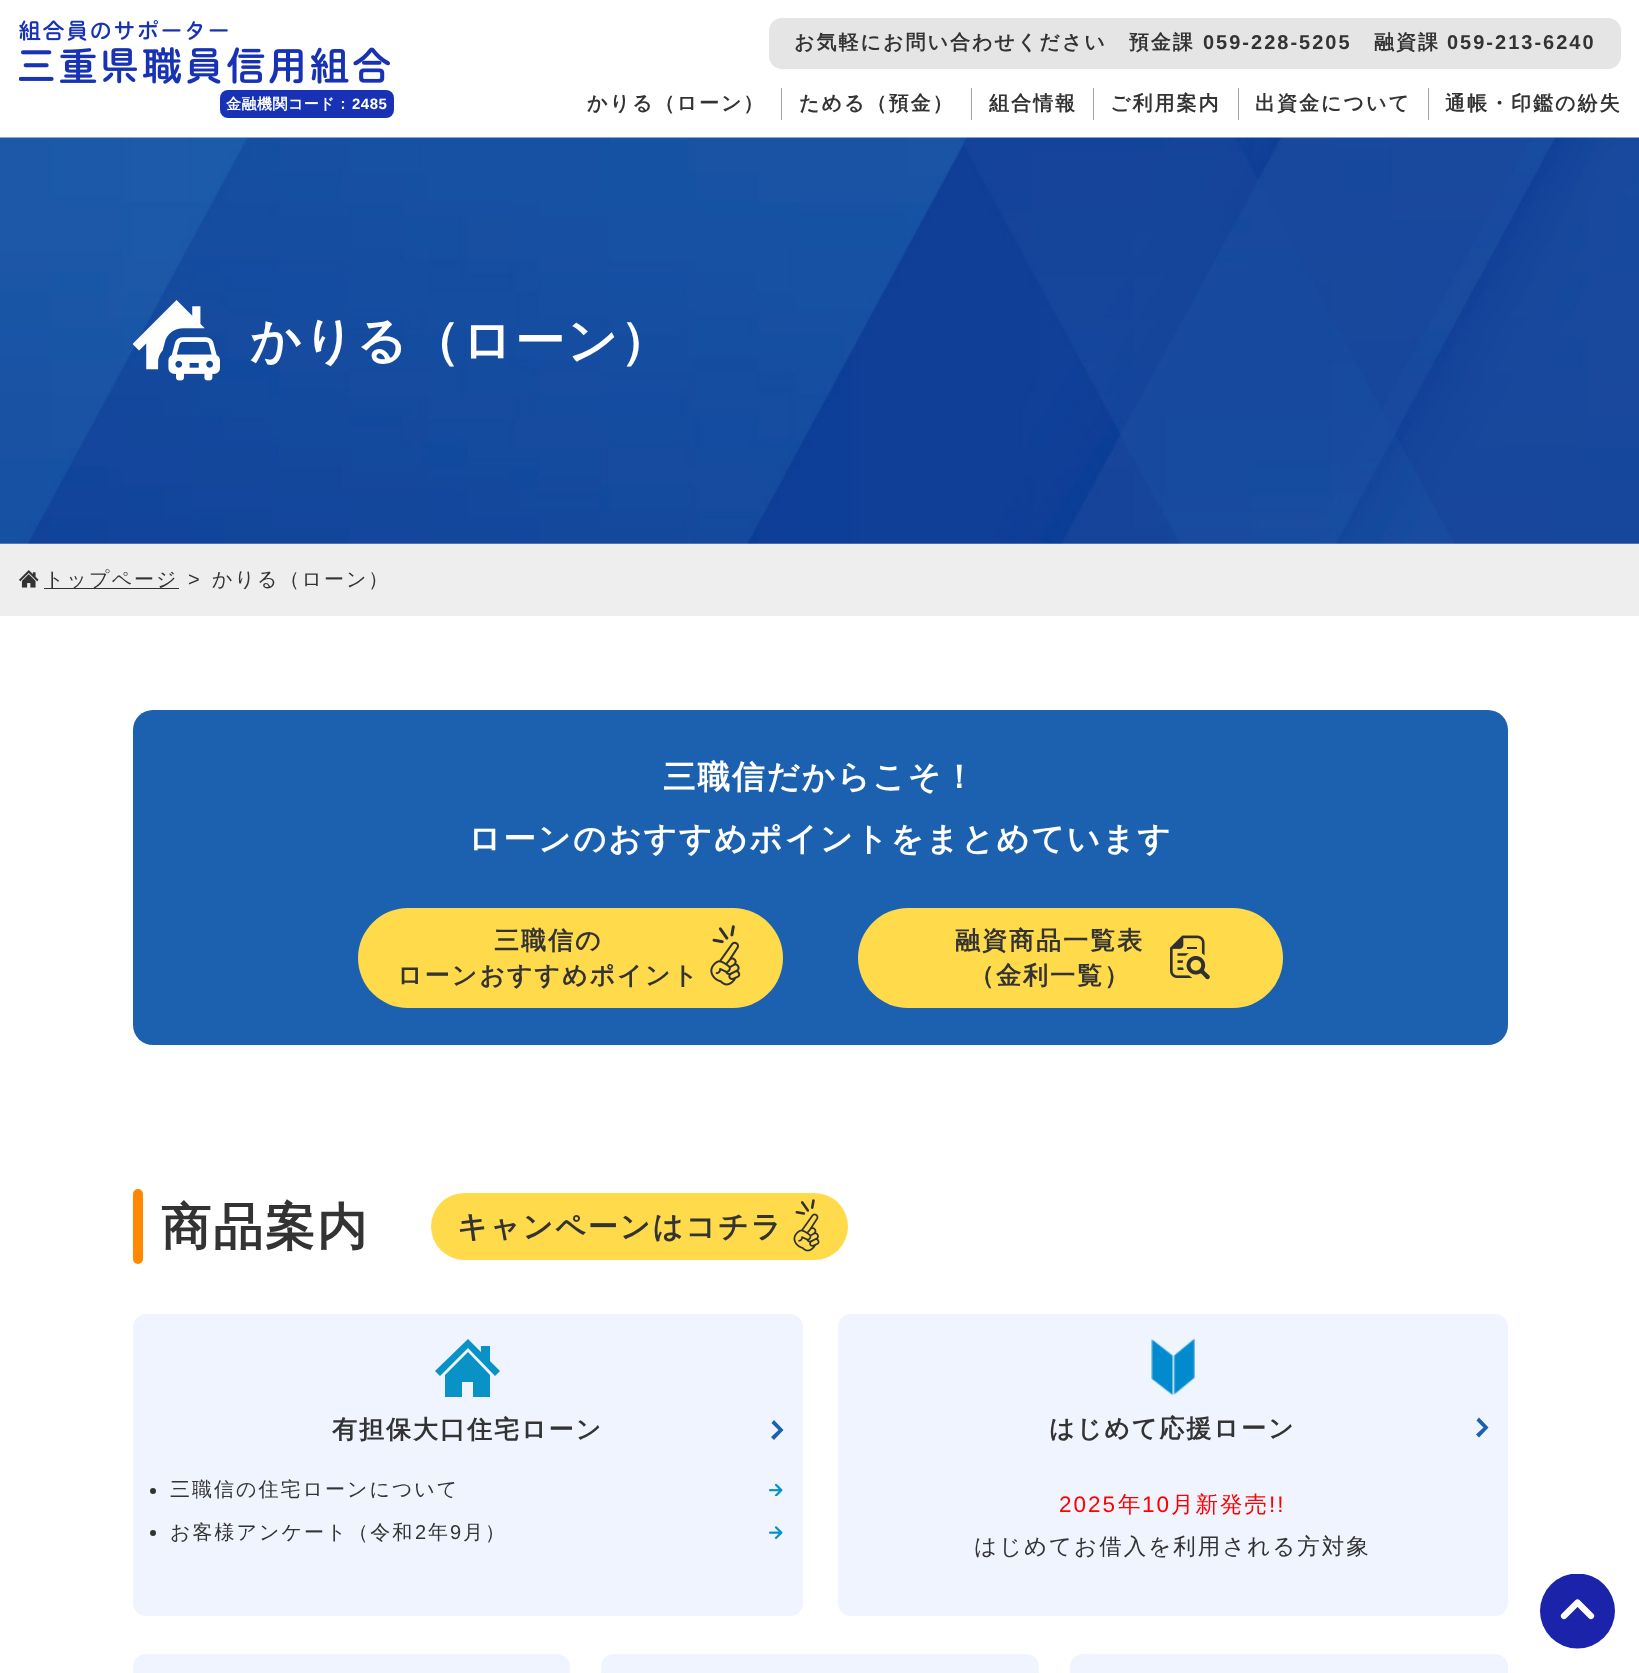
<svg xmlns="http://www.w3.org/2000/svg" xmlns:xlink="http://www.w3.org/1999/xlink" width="1639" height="1673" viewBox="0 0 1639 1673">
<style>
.cls-1{font:bold 15px WenQuanYi Zen Hei;letter-spacing:0.5px;fill:#ffffff}
.cls-2{font:bold 15px Liberation Sans;letter-spacing:0.5px;fill:#ffffff}
.cls-3{font:bold 20px WenQuanYi Zen Hei;letter-spacing:2px;fill:#333333}
.cls-4{font:bold 20px Liberation Sans;letter-spacing:2px;fill:#333333}
.cls-5{font:bold 50px WenQuanYi Zen Hei;letter-spacing:2px;fill:#ffffff}
.cls-6{font:500 20px WenQuanYi Zen Hei;letter-spacing:2px;fill:#333333}
.cls-7{font:20px Liberation Sans;letter-spacing:2px;fill:#333333}
.cls-8{font:bold 32.5px WenQuanYi Zen Hei;letter-spacing:2px;fill:#ffffff}
.cls-9{font:bold 25px WenQuanYi Zen Hei;letter-spacing:2px;fill:#333333}
.cls-10{font:bold 50px WenQuanYi Zen Hei;letter-spacing:2px;fill:#333333}
.cls-11{font:bold 30px WenQuanYi Zen Hei;letter-spacing:2px;fill:#333333}
.cls-12{font:22.5px Liberation Sans;letter-spacing:2px;fill:#ff0000}
.cls-13{font:500 22.5px WenQuanYi Zen Hei;letter-spacing:2px;fill:#ff0000}
.cls-14{font:500 22.5px WenQuanYi Zen Hei;letter-spacing:2px;fill:#333333}
</style>
<defs>
<clipPath id="clip1"><rect x="1540" y="1574" width="75" height="75"/></clipPath>
</defs>
<rect width="100%" height="100%" fill="#ffffff"/>
<image xlink:href="image0.png" x="19" y="20" width="371" height="64"/>
<rect fill="#1832b6" x="220" y="90" width="174" height="28" rx="8"/>
<rect fill="#e5e5e5" x="769" y="18" width="852" height="51" rx="13"/>
<rect fill="#a5a5a5" x="781" y="88" width="1" height="32"/>
<rect fill="#a5a5a5" x="971" y="88" width="1" height="32"/>
<rect fill="#a5a5a5" x="1093" y="88" width="1" height="32"/>
<rect fill="#a5a5a5" x="1238" y="88" width="1" height="32"/>
<rect fill="#a5a5a5" x="1428" y="88" width="1" height="32"/>
<image xlink:href="image1.png" x="0" y="137" width="1639" height="407"/>
<image xlink:href="image2.png" x="133" y="300" width="87" height="81"/>
<rect fill="#eeeeee" x="0" y="544" width="1639" height="72"/>
<image xlink:href="image3.png" x="19" y="570" width="20" height="18"/>
<rect fill="#333333" x="44" y="588" width="135" height="1"/>
<rect fill="#1c61af" x="133" y="710" width="1375" height="335" rx="20"/>
<rect fill="#ffdb4c" x="358" y="908" width="425" height="100" rx="50"/>
<image xlink:href="image4.png" x="710" y="925" width="31" height="61"/>
<rect fill="#ffdb4c" x="858" y="908" width="425" height="100" rx="50"/>
<image xlink:href="image5.png" x="1170" y="935" width="40" height="45"/>
<rect fill="#ff8800" x="133" y="1189" width="10" height="75" rx="5"/>
<rect fill="#ffdb4c" x="431" y="1193" width="417" height="67" rx="33.5"/>
<image xlink:href="image6.png" x="793" y="1199" width="27" height="53"/>
<rect fill="#f0f4ff" x="133" y="1314" width="670" height="302" rx="13"/>
<path fill="#0992c6" d="M490 1361V1346H481V1352L468 1339L435 1371L440 1376L468 1348L495 1376L500 1371Z"/>
<path fill="#0992c6" d="M445 1375V1397H462V1382H473V1397H490V1375L468 1352Z"/>
<path fill="#1c61af" d="M774 1420L771.5 1423L778.5 1430L771 1437L774 1440L783.5 1430Z"/>
<image xlink:href="image7.png" x="769" y="1484" width="14" height="12"/>
<circle fill="#333333" cx="153" cy="1491" r="3"/>
<image xlink:href="image8.png" x="769" y="1526" width="14" height="13"/>
<circle fill="#333333" cx="153" cy="1533" r="3"/>
<rect fill="#f0f4ff" x="838" y="1314" width="670" height="302" rx="13"/>
<image xlink:href="image9.png" x="1151" y="1338" width="44" height="57"/>
<path fill="#1c61af" d="M1479 1417.5L1476.5 1420.5L1483.5 1427.5L1476 1434.5L1479 1437.5L1488.5 1427.5Z"/>
<rect fill="#f0f4ff" x="133" y="1654" width="437" height="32" rx="13"/>
<rect fill="#f0f4ff" x="601" y="1654" width="438" height="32" rx="13"/>
<rect fill="#f0f4ff" x="1070" y="1654" width="438" height="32" rx="13"/>
<g clip-path="url(#clip1)">
<circle fill="#1a23a9" cx="1577.5" cy="1611" r="37.5"/>
</g>
<path fill="none" stroke="#ffffff" stroke-width="6.2" stroke-linecap="round" d="M1591 1616L1577.5 1602.5M1564 1616L1577.5 1602.5"/>
<text class="cls-1" x="226" y="109">金融機関コード：</text>
<text class="cls-2" x="352" y="109">2485</text>
<text class="cls-3" x="794" y="49">お気軽にお問い合わせください　預金課</text>
<text class="cls-4" x="1203" y="49">059-228-5205</text>
<text class="cls-3" x="1374" y="49">融資課</text>
<text class="cls-4" x="1447" y="49">059-213-6240</text>
<text class="cls-3" x="587" y="110">かりる（ローン）</text>
<text class="cls-3" x="799" y="110">ためる（預金）</text>
<text class="cls-3" x="989" y="110">組合情報</text>
<text class="cls-3" x="1110" y="110">ご利用案内</text>
<text class="cls-3" x="1255" y="110">出資金について</text>
<text class="cls-3" x="1445" y="110">通帳・印鑑の紛失</text>
<text class="cls-5" x="250" y="358">かりる（ローン）</text>
<text class="cls-6" x="44" y="586">トップページ</text>
<text class="cls-7" x="188" y="586">&gt;</text>
<text class="cls-6" x="212" y="586">かりる（ローン）</text>
<text class="cls-8" x="663" y="788">三職信だからこそ！</text>
<text class="cls-8" x="468" y="850">ローンのおすすめポイントをまとめています</text>
<text class="cls-9" x="494" y="949">三職信の</text>
<text class="cls-9" x="397" y="984">ローンおすすめポイント</text>
<text class="cls-9" x="955" y="949">融資商品一覧表</text>
<text class="cls-9" x="969" y="984">（金利一覧）</text>
<text class="cls-10" x="161" y="1244">商品案内</text>
<text class="cls-11" x="457" y="1237">キャンペーンはコチラ</text>
<text class="cls-9" x="332" y="1438">有担保大口住宅ローン</text>
<text class="cls-6" x="170" y="1496">三職信の住宅ローンについて</text>
<text class="cls-6" x="170" y="1539">お客様アンケート（令和</text>
<text class="cls-7" x="415" y="1539">2</text>
<text class="cls-6" x="428" y="1539">年</text>
<text class="cls-7" x="450" y="1539">9</text>
<text class="cls-6" x="463" y="1539">月）</text>
<text class="cls-9" x="1049" y="1437">はじめて応援ローン</text>
<text class="cls-12" x="1059" y="1512">2025</text>
<text class="cls-13" x="1118" y="1512">年</text>
<text class="cls-12" x="1142" y="1512">10</text>
<text class="cls-13" x="1171" y="1512">月新発売</text>
<text class="cls-12" x="1269" y="1512">!!</text>
<text class="cls-14" x="974" y="1554">はじめてお借入を利用される方対象</text>
</svg>
